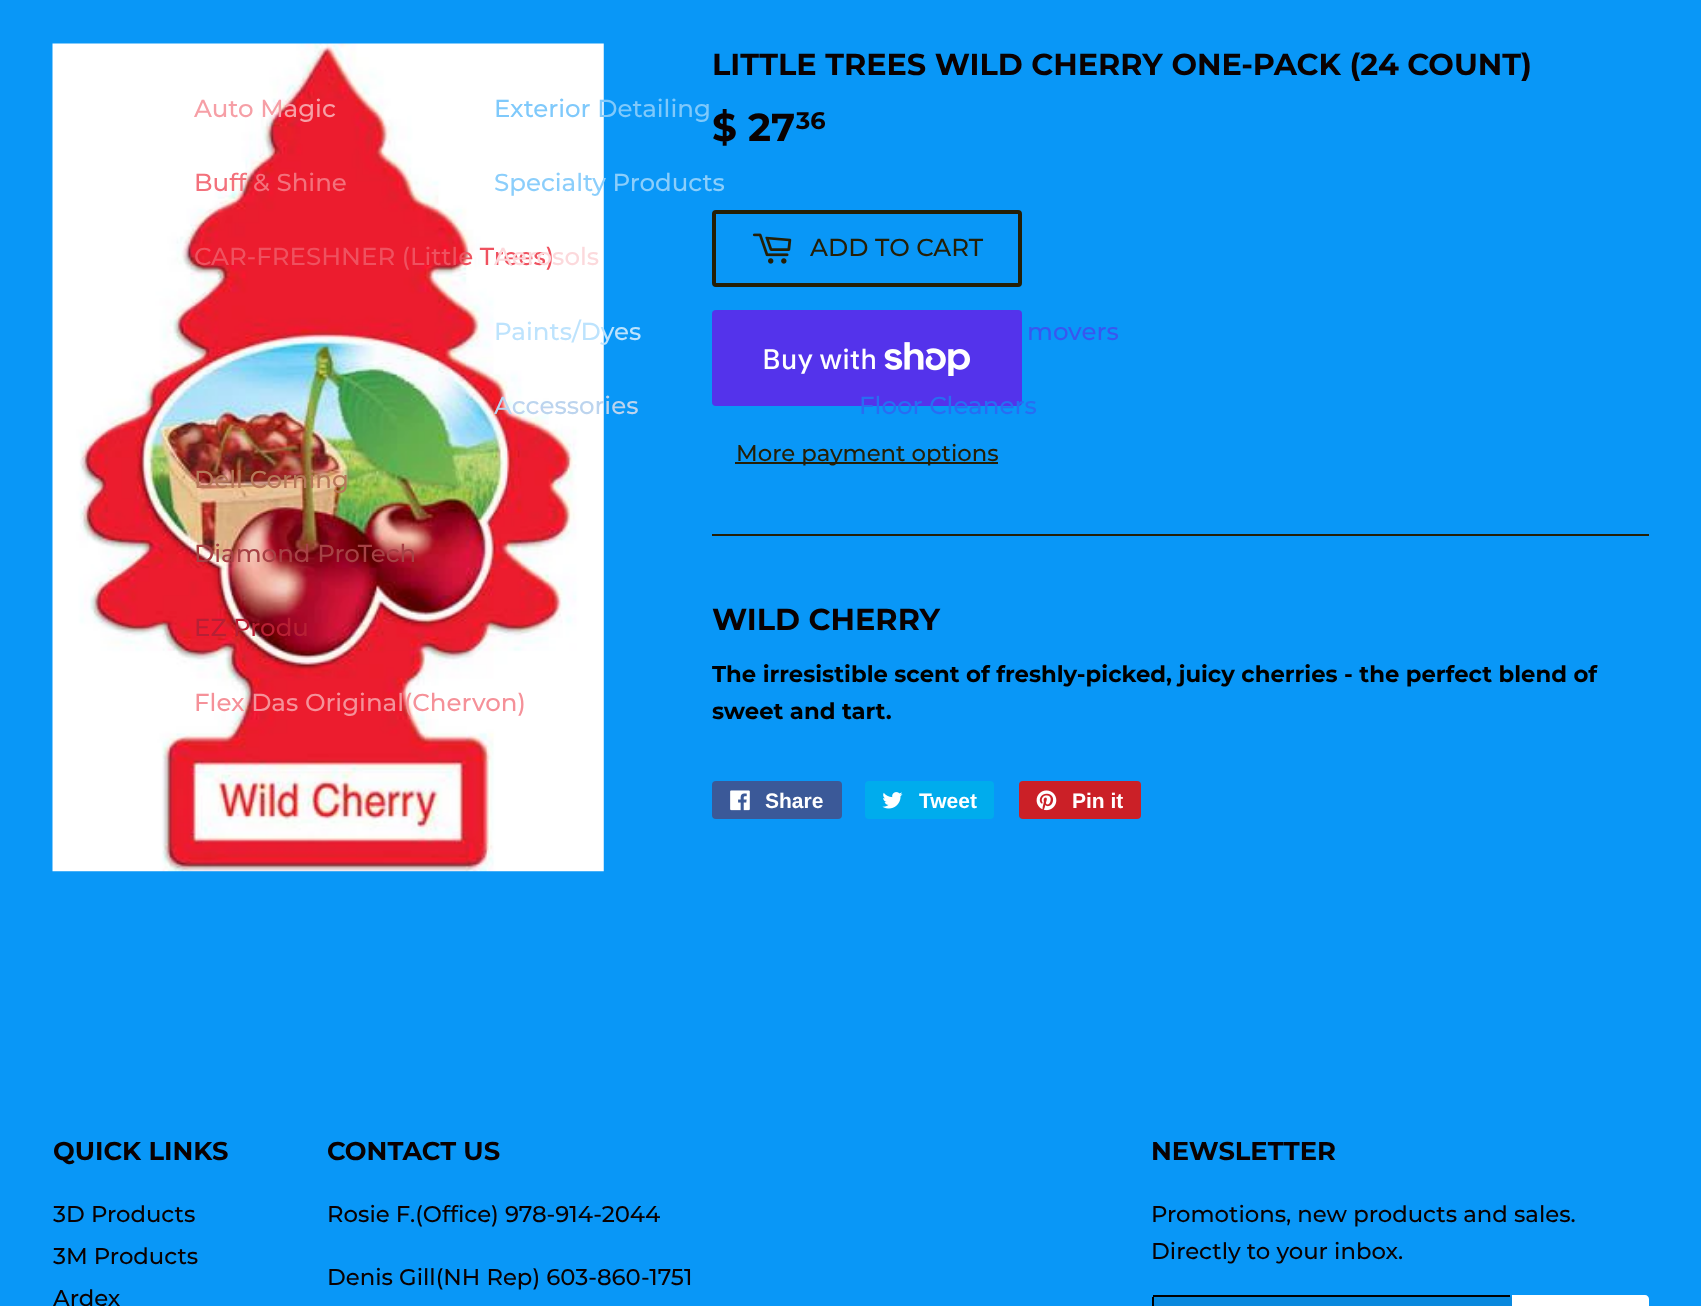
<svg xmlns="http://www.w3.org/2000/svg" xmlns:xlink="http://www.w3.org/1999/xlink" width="1701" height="1306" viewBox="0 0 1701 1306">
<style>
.cls-1{font:500 24.5px Montserrat;fill:#f69fa6}
.cls-2{font:500 24.5px Montserrat;fill:#f3717c}
.cls-3{font:500 24.5px Montserrat;fill:#ef515f}
.cls-4{font:500 24.5px Montserrat;fill:#b67859}
.cls-5{font:500 24.5px Montserrat;fill:#a74145}
.cls-6{font:500 24.5px Montserrat;fill:#b81f34}
.cls-7{font:500 24.5px Montserrat;fill:#f59199}
.cls-8{font:500 24.5px Montserrat;fill:#7fc9fb}
.cls-9{font:500 24.5px Montserrat;fill:#8bcefb}
.cls-10{font:500 24.5px Montserrat;fill:#3957ef}
.cls-11{font:500 24.5px Montserrat;fill:#286df2}
.cls-12{font:500 24.5px Montserrat;fill:#fcd9dc}
.cls-13{font:500 24.5px Montserrat;fill:#bde3fd}
.cls-14{font:500 24.5px Montserrat;fill:#bcd4ee}
.cls-15{font:bold 30.3px Montserrat;fill:#0a0101}
.cls-16{font:bold 39px Montserrat;fill:#0a0101}
.cls-17{font:bold 24px Montserrat;fill:#0a0101}
.cls-18{font:500 24.5px Montserrat;fill:#251f06}
.cls-19{font:500 28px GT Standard;fill:#ffffff}
.cls-20{font:500 22.75px Montserrat;fill:#251f06}
.cls-21{font:bold 22.75px Montserrat;fill:#000000}
.cls-22{font:bold 21px Liberation Sans;fill:#ffffff}
.cls-23{font:bold 25.75px Montserrat;fill:#0a0101}
.cls-24{font:500 22.75px Montserrat;fill:#0a0101}
</style>
<rect width="100%" height="100%" fill="#0997f7"/>
<image xlink:href="image0.png" x="52" y="43" width="552" height="829"/>
<rect fill="none" stroke="#251f06" stroke-width="4" x="714" y="212" width="306" height="73" rx="2"/>
<image xlink:href="image1.png" x="752" y="233" width="40" height="31"/>
<rect fill="#5433eb" x="712" y="310" width="310" height="96" rx="4"/>
<image xlink:href="image2.png" x="884" y="342" width="86" height="34"/>
<rect fill="#251f06" x="735" y="462" width="263" height="2"/>
<rect fill="#251f06" x="712" y="534" width="937" height="2"/>
<rect fill="#3b5998" x="712" y="781" width="130" height="38" rx="4"/>
<image xlink:href="image3.png" x="730" y="790" width="20" height="21"/>
<rect fill="#00aced" x="865" y="781" width="129" height="38" rx="4"/>
<image xlink:href="image4.png" x="882" y="792" width="21" height="17"/>
<rect fill="#cb2027" x="1019" y="781" width="122" height="38" rx="4"/>
<image xlink:href="image5.png" x="1036" y="790" width="21" height="21"/>
<rect fill="#0888de" x="1152" y="1295" width="360" height="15" rx="4"/>
<rect fill="#000000" x="1153" y="1295" width="357" height="2"/>
<rect fill="#000000" x="1152" y="1297" width="2" height="9"/>
<path fill="#ffffff" d="M1512 1295H1645C1647 1295 1649 1297 1649 1299V1306C1649 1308 1647 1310 1645 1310H1512Z"/>
<text class="cls-1" x="194" y="117">Auto Magic</text>
<text class="cls-2" x="194" y="191">Buff &amp; Shine</text>
<text class="cls-3" x="194" y="265">CAR-FRESHNER (Little Trees)</text>
<text class="cls-4" x="194" y="488">Dell Corning</text>
<text class="cls-5" x="194" y="562">Diamond ProTech</text>
<text class="cls-6" x="194" y="636">EZ Produ</text>
<text class="cls-7" x="194" y="711">Flex Das Original(Chervon)</text>
<text class="cls-8" x="494" y="117">Exterior Detailing</text>
<text class="cls-9" x="494" y="191">Specialty Products</text>
<text class="cls-10" x="1027" y="340">movers</text>
<text class="cls-11" x="859" y="414">Floor Cleaners</text>
<text class="cls-12" x="494" y="265">Aerosols</text>
<text class="cls-13" x="494" y="340">Paints/Dyes</text>
<text class="cls-14" x="494" y="414">Accessories</text>
<text class="cls-15" x="712" y="75">LITTLE TREES WILD CHERRY ONE-PACK (24 COUNT)</text>
<text class="cls-16" x="712" y="141">$ 27</text>
<text class="cls-17" x="796" y="129">36</text>
<text class="cls-18" x="810" y="256">ADD TO CART</text>
<text class="cls-19" x="762" y="369">Buy with</text>
<text class="cls-20" x="736" y="461">More payment options</text>
<text class="cls-15" x="712" y="630">WILD CHERRY</text>
<text class="cls-21"><tspan x="712" y="682">The irresistible scent of freshly-picked, juicy cherries - the perfect blend of</tspan><tspan x="712" y="719">sweet and tart.</tspan></text>
<text class="cls-22" x="765" y="808">Share</text>
<text class="cls-22" x="919" y="808">Tweet</text>
<text class="cls-22" x="1072" y="808">Pin it</text>
<text class="cls-23" x="53" y="1160">QUICK LINKS</text>
<text class="cls-24"><tspan x="53" y="1222">3D Products</tspan><tspan x="53" y="1264">3M Products</tspan><tspan x="53" y="1306">Ardex</tspan></text>
<text class="cls-23" x="327" y="1160">CONTACT US</text>
<text class="cls-24" x="327" y="1222">Rosie F.(Office) 978-914-2044</text>
<text class="cls-24" x="327" y="1285">Denis Gill(NH Rep) 603-860-1751</text>
<text class="cls-23" x="1151" y="1160">NEWSLETTER</text>
<text class="cls-24"><tspan x="1151" y="1222">Promotions, new products and sales.</tspan><tspan x="1151" y="1259">Directly to your inbox.</tspan></text>
</svg>
